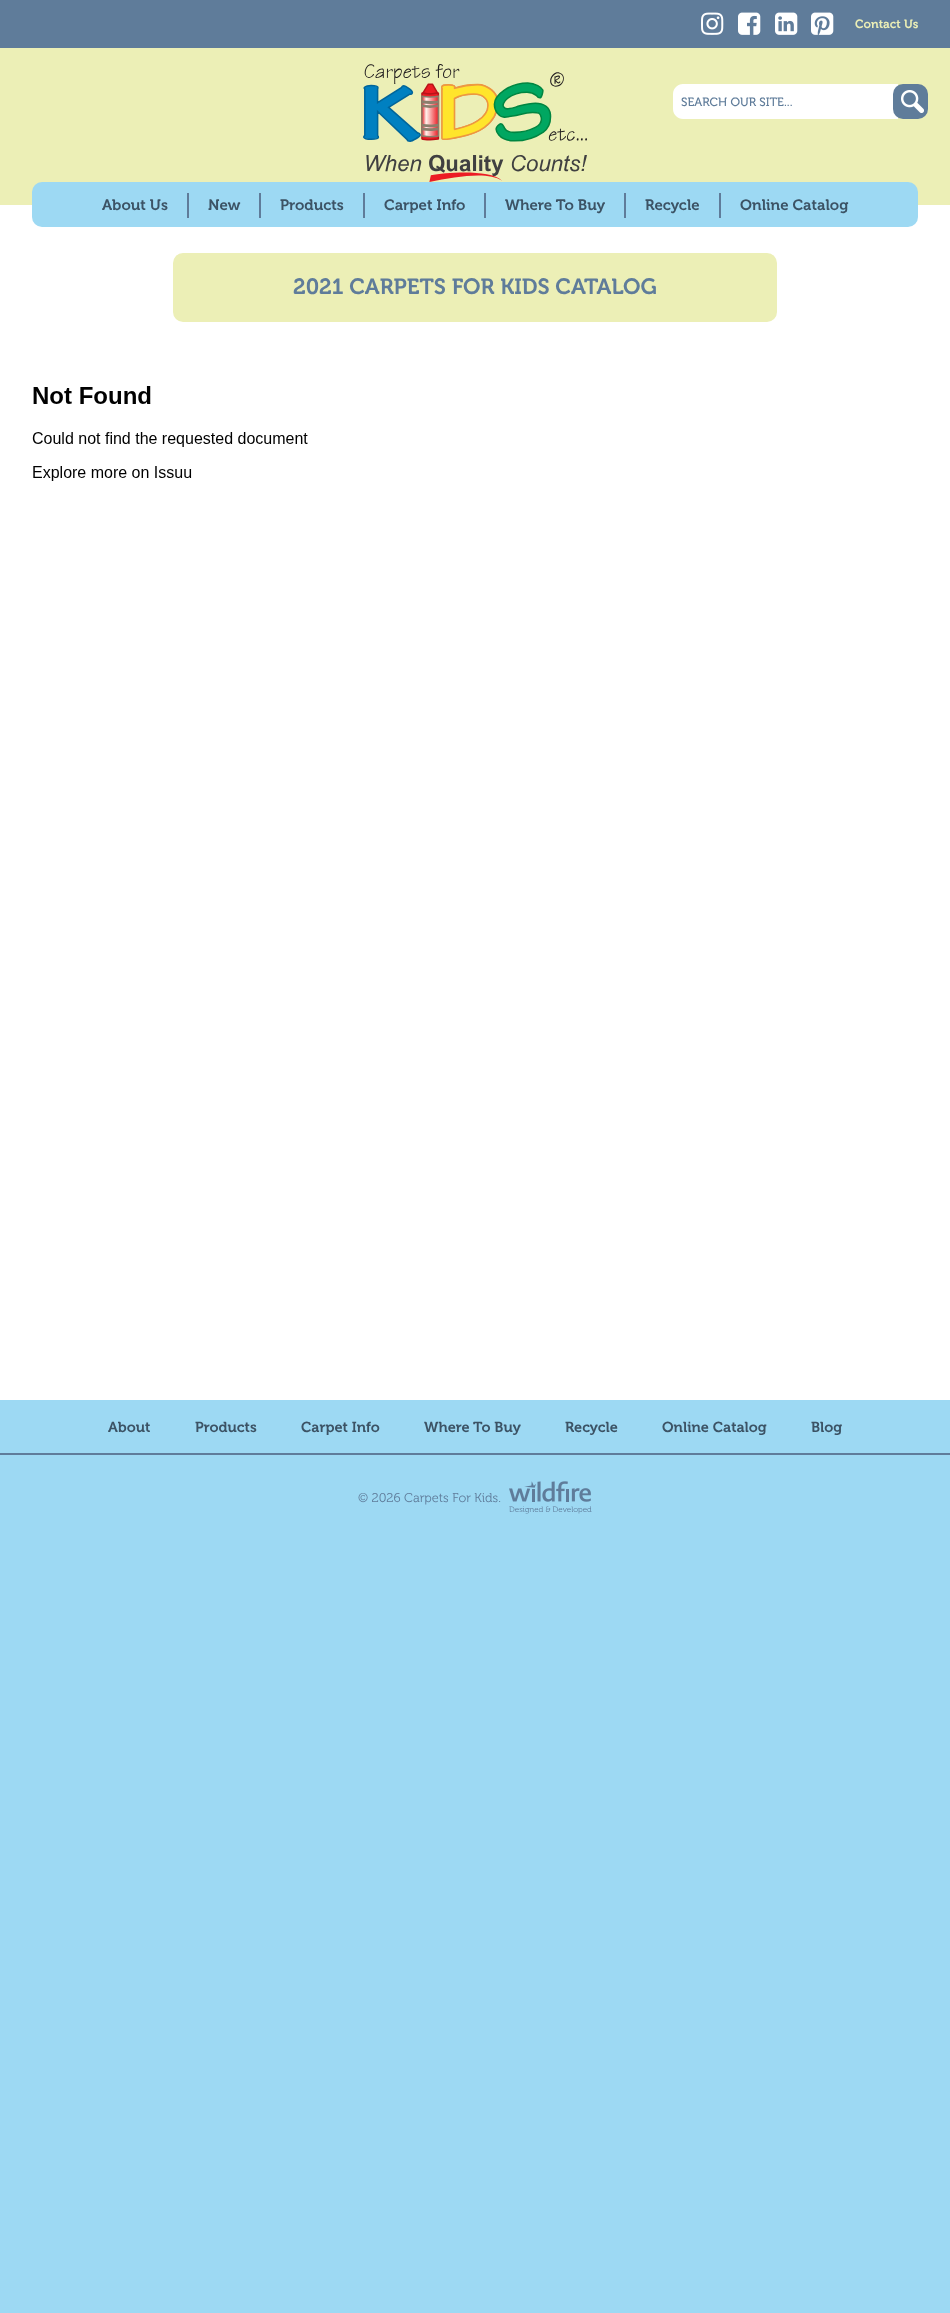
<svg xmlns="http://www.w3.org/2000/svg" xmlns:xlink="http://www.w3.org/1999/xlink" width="950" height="2313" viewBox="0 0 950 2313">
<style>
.cls-1{font:600 12px 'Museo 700';fill:#ecefb6}
.cls-2{font:12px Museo;fill:#5f7c9a}
.cls-3{font:600 15px 'Museo 700';fill:#3c5365}
.cls-4{font:600 22px 'Museo 700';fill:#5f7c9a}
.cls-5{font:600 14.5px 'Museo 700';fill:#3c5365}
.cls-6{font:300 12.75px 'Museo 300';fill:#5f7c9a}
.cls-7{font:300 8px 'Museo 300';fill:#5f7c9a}
</style>
<rect width="100%" height="100%" fill="#9dd9f3"/>
<rect fill="#5f7c9a" x="0" y="0" width="950" height="48"/>
<image xlink:href="image0.png" x="701" y="12" width="23" height="23"/>
<image xlink:href="image1.png" x="738" y="12" width="23" height="23"/>
<image xlink:href="image2.png" x="775" y="12" width="23" height="23"/>
<image xlink:href="image3.png" x="811" y="12" width="23" height="23"/>
<rect fill="#ecefb6" x="0" y="48" width="950" height="157"/>
<image xlink:href="image4.png" x="363" y="64" width="224" height="118"/>
<path fill="#ffffff" d="M683 84H898V119H683C677.5 119 673 114.5 673 109V94C673 88.5 677.5 84 683 84Z"/>
<rect fill="#5f7c9a" x="893" y="84" width="35" height="35" rx="10"/>
<image xlink:href="image5.png" x="901" y="90" width="23" height="23"/>
<rect fill="#ffffff" x="0" y="205" width="950" height="1195"/>
<rect fill="#9dd9f3" x="32" y="182" width="886" height="45" rx="10"/>
<rect fill="#5f7c9a" x="187" y="193" width="2" height="25"/>
<rect fill="#5f7c9a" x="259" y="193" width="2" height="25"/>
<rect fill="#5f7c9a" x="363" y="193" width="2" height="25"/>
<rect fill="#5f7c9a" x="484" y="193" width="2" height="25"/>
<rect fill="#5f7c9a" x="624" y="193" width="2" height="25"/>
<rect fill="#5f7c9a" x="719" y="193" width="2" height="25"/>
<rect fill="#ecefb6" x="173" y="253" width="604" height="69" rx="10"/>
<image xlink:href="image6.png" x="32" y="386" width="276" height="95"/>
<rect fill="#5f7c9a" x="0" y="1453" width="950" height="2"/>
<image xlink:href="image7.png" x="509" y="1481" width="82" height="21"/>
<text class="cls-1" x="855" y="28">Contact Us</text>
<text class="cls-2" x="681" y="106">SEARCH OUR SITE...</text>
<text class="cls-3" x="102" y="210">About Us</text>
<text class="cls-3" x="208" y="210">New</text>
<text class="cls-3" x="280" y="210">Products</text>
<text class="cls-3" x="384" y="210">Carpet Info</text>
<text class="cls-3" x="505" y="210">Where To Buy</text>
<text class="cls-3" x="645" y="210">Recycle</text>
<text class="cls-3" x="740" y="210">Online Catalog</text>
<text class="cls-4" x="293" y="294">2021 CARPETS FOR KIDS CATALOG</text>
<text class="cls-5" x="108" y="1432">About</text>
<text class="cls-5" x="195" y="1432">Products</text>
<text class="cls-5" x="301" y="1432">Carpet Info</text>
<text class="cls-5" x="424" y="1432">Where To Buy</text>
<text class="cls-5" x="565" y="1432">Recycle</text>
<text class="cls-5" x="662" y="1432">Online Catalog</text>
<text class="cls-5" x="811" y="1432">Blog</text>
<text class="cls-6" x="358" y="1502">© 2026 Carpets For Kids.</text>
<text class="cls-7" x="509" y="1512">Designed &amp; Developed</text>
</svg>
